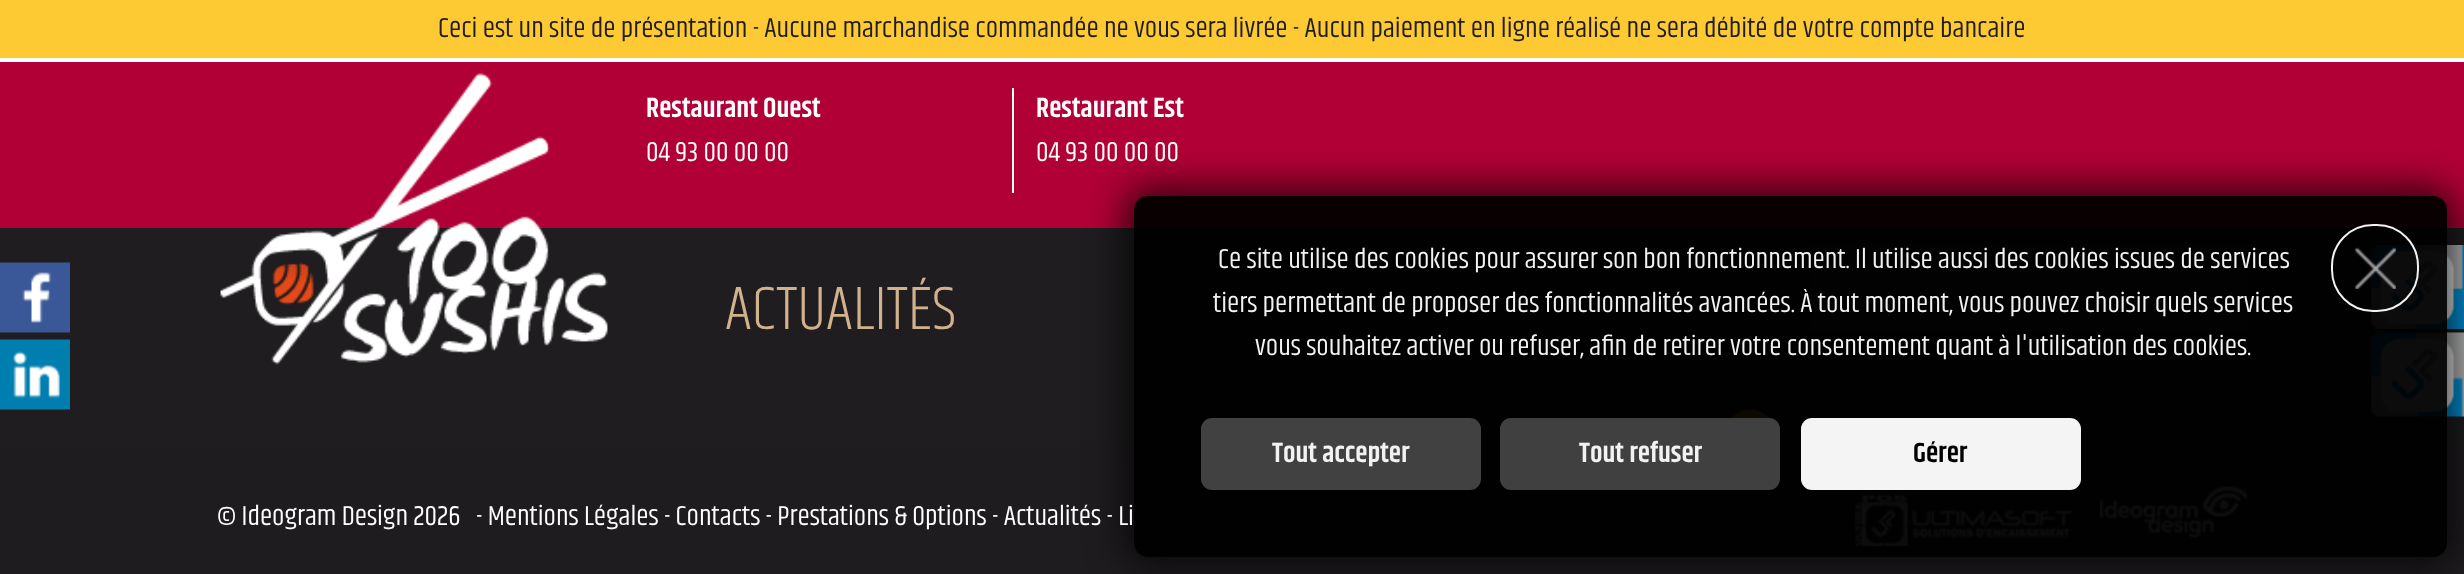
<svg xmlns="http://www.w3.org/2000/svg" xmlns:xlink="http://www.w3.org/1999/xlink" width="2464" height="574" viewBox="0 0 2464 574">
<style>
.cls-1{font:28px Khand;fill:#1f1d1f}
.cls-2{font:600 28px Khand;fill:#ffffff}
.cls-3{font:28px Khand;fill:#ffffff}
.cls-4{font:300 63px Khand;fill:#d1b28d}
.cls-5{font:28px Khand;fill:#f2f2f2}
.cls-6{font:600 28px Khand;fill:#f2f2f2}
.cls-7{font:600 28px Khand;fill:#020102}
</style>
<defs>
<clipPath id="clip1"><path d="M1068 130H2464V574H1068ZM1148 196H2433C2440.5 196 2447 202.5 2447 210V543C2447 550.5 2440.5 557 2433 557H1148C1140.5 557 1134 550.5 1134 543V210C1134 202.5 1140.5 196 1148 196Z" clip-rule="evenodd"/></clipPath>
</defs>
<rect width="100%" height="100%" fill="#1f1d1f"/>
<rect fill="#feca33" x="0" y="0" width="2464" height="58"/>
<rect fill="#ffffff" x="0" y="58" width="2464" height="4"/>
<rect fill="#b10035" x="0" y="62" width="2464" height="166"/>
<image xlink:href="image0.png" x="220" y="73" width="389" height="292"/>
<rect fill="#ffffff" x="1012" y="88" width="2" height="105"/>
<rect fill="#2f343d" x="1810" y="245" width="437" height="88"/>
<image xlink:href="image1.png" x="2371" y="245" width="93" height="84"/>
<image xlink:href="image2.png" x="2371" y="332" width="93" height="85"/>
<image xlink:href="image3.png" x="0" y="262" width="70" height="71"/>
<image xlink:href="image4.png" x="0" y="339" width="70" height="71"/>
<image xlink:href="image6.png" x="1725" y="409" width="50" height="48"/>
<rect fill="#1f1d1f" fill-opacity="0.7" filter="blur(5px)" x="-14" y="453" width="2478" height="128"/>
<image xlink:href="image7.png" x="1855" y="494" width="217" height="53"/>
<image xlink:href="image8.png" x="2100" y="485" width="147" height="53"/>
<g clip-path="url(#clip1)">
<rect fill="#000000" fill-opacity="0.71" filter="blur(18.5px)" x="1125" y="187" width="1330" height="378" rx="23"/>
</g>
<rect fill="#000000" fill-opacity="0.95" x="1134" y="196" width="1313" height="361" rx="14"/>
<rect fill="none" stroke="#ffffff" stroke-opacity="0.95" stroke-width="2" x="2332" y="225" width="86" height="86" rx="41"/>
<image xlink:href="image5.png" x="2354" y="247" width="42" height="42"/>
<rect fill="#414141" x="1201" y="418" width="280" height="72" rx="11"/>
<rect fill="#434343" fill-opacity="0.95" x="1500" y="418" width="280" height="72" rx="11"/>
<rect fill="#f4f4f4" x="1801" y="418" width="280" height="72" rx="11"/>
<text class="cls-1" x="438" y="37">Ceci est un site de présentation - Aucune marchandise commandée ne vous sera livrée - Aucun paiement en ligne réalisé ne sera débité de votre compte bancaire</text>
<text class="cls-2" x="646" y="117">Restaurant Ouest</text>
<text class="cls-3" x="646" y="161">04 93 00 00 00</text>
<text class="cls-2" x="1036" y="117">Restaurant Est</text>
<text class="cls-3" x="1036" y="161">04 93 00 00 00</text>
<text class="cls-4" x="725" y="329">ACTUALITÉS</text>
<text class="cls-5" x="1218" y="268">Ce site utilise des cookies pour assurer son bon fonctionnement. Il utilise aussi des cookies issues de services</text>
<text class="cls-5" x="1213" y="312">tiers permettant de proposer des fonctionnalités avancées. À tout moment, vous pouvez choisir quels services</text>
<text class="cls-5" x="1255" y="355">vous souhaitez activer ou refuser, afin de retirer votre consentement quant à l'utilisation des cookies.</text>
<text class="cls-6" x="1272" y="462">Tout accepter</text>
<text class="cls-6" x="1579" y="462">Tout refuser</text>
<text class="cls-7" x="1913" y="462">Gérer</text>
<text class="cls-3" x="217" y="525">© Ideogram Design 2026</text>
<text class="cls-3" x="476" y="525">- Mentions Légales - Contacts - Prestations &amp; Options - Actualités - Li</text>
</svg>
